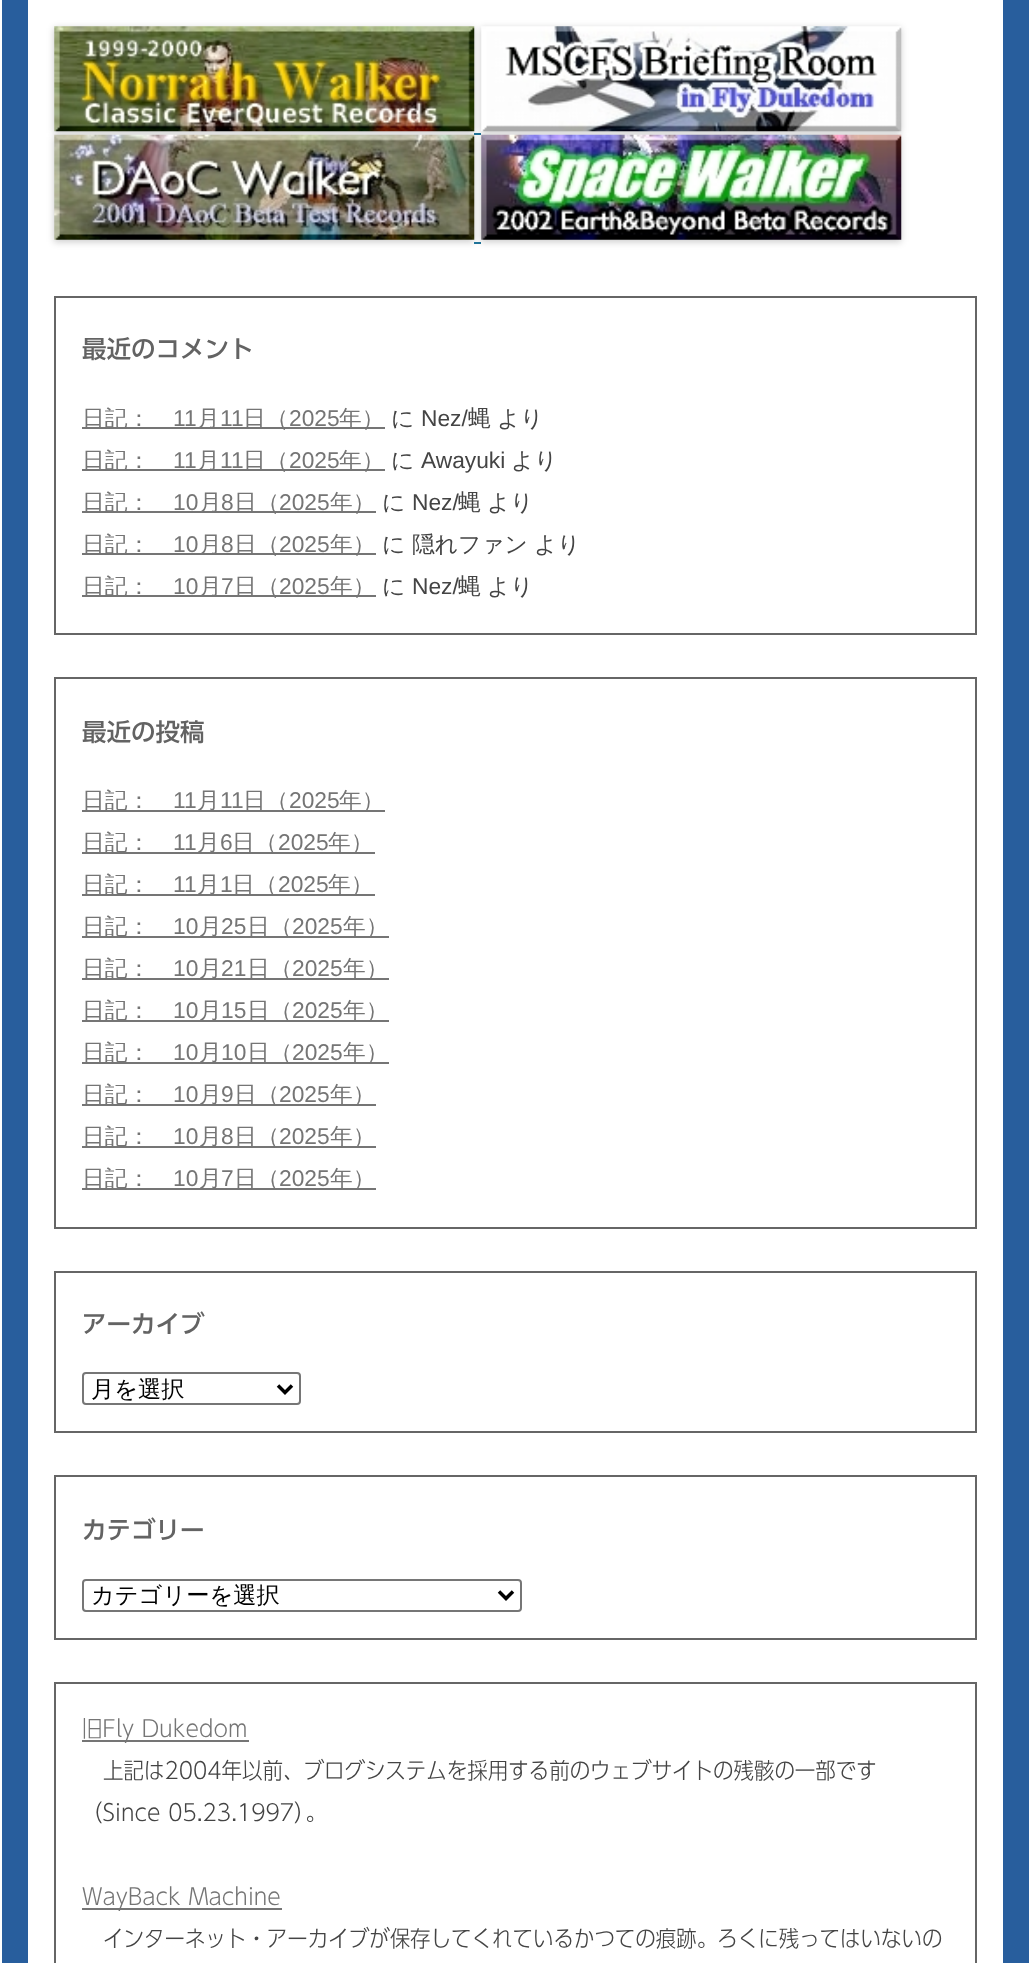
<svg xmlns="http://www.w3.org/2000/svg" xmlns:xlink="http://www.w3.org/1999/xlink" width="1030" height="1963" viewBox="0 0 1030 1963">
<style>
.cls-1{font:500 24.5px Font;fill:#636363}
.cls-2{font:500 22.75px WenQuanYi Zen Hei;fill:#757575}
.cls-3{font:22.75px Liberation Sans;fill:#757575}
.cls-4{font:500 22.75px WenQuanYi Zen Hei;fill:#444444}
.cls-5{font:22.75px Liberation Sans;fill:#444444}
.cls-6{font:500 23.25px WenQuanYi Zen Hei;fill:#000000}
.cls-7{font:300 22.75px Font;fill:#757575}
.cls-8{font:300 22.75px Font;fill:#444444}
</style>
<rect width="100%" height="100%" fill="#285e9d"/>
<rect fill="none" stroke="#ffffff" stroke-width="2" x="1" y="-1" width="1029" height="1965"/>
<rect fill="#ffffff" x="28" y="0" width="975" height="1963"/>
<rect fill="#000000" fill-opacity="0.2" filter="blur(3.5px)" x="54" y="28" width="420" height="105"/>
<image xlink:href="image0.png" x="54" y="26" width="421" height="106"/>
<rect fill="#21759b" x="474" y="133" width="7" height="2"/>
<rect fill="#000000" fill-opacity="0.2" filter="blur(3.5px)" x="481" y="28" width="420" height="105"/>
<image xlink:href="image1.png" x="481" y="26" width="421" height="106"/>
<rect fill="#000000" fill-opacity="0.2" filter="blur(3.5px)" x="54" y="137" width="420" height="105"/>
<image xlink:href="image2.png" x="54" y="134" width="421" height="106"/>
<rect fill="#21759b" x="474" y="242" width="7" height="2"/>
<rect fill="#000000" fill-opacity="0.2" filter="blur(3.5px)" x="481" y="137" width="420" height="105"/>
<image xlink:href="image3.png" x="481" y="134" width="421" height="106"/>
<rect fill="none" stroke="#666666" stroke-width="2" x="55" y="297" width="921" height="337"/>
<rect fill="#757575" x="82" y="427" width="303" height="2"/>
<rect fill="#757575" x="82" y="469" width="303" height="2"/>
<rect fill="#757575" x="82" y="511" width="294" height="2"/>
<rect fill="#757575" x="82" y="553" width="294" height="2"/>
<rect fill="#757575" x="82" y="595" width="294" height="2"/>
<rect fill="none" stroke="#666666" stroke-width="2" x="55" y="678" width="921" height="550"/>
<rect fill="#757575" x="82" y="810" width="303" height="2"/>
<rect fill="#757575" x="82" y="852" width="293" height="2"/>
<rect fill="#757575" x="82" y="894" width="293" height="2"/>
<rect fill="#757575" x="82" y="936" width="307" height="2"/>
<rect fill="#757575" x="82" y="978" width="307" height="2"/>
<rect fill="#757575" x="82" y="1020" width="307" height="2"/>
<rect fill="#757575" x="82" y="1062" width="307" height="2"/>
<rect fill="#757575" x="82" y="1104" width="294" height="2"/>
<rect fill="#757575" x="82" y="1146" width="294" height="2"/>
<rect fill="#757575" x="82" y="1188" width="294" height="2"/>
<rect fill="none" stroke="#666666" stroke-width="2" x="55" y="1272" width="921" height="160"/>
<rect fill="none" stroke="#767676" stroke-width="2" x="83" y="1373" width="217" height="31" rx="3"/>
<path fill="none" stroke="#000000" stroke-width="3.5" d="M278 1385.5L285 1392.5L292 1385.5"/>
<rect fill="none" stroke="#666666" stroke-width="2" x="55" y="1476" width="921" height="163"/>
<rect fill="none" stroke="#767676" stroke-width="2" x="83" y="1580" width="438" height="31" rx="3"/>
<path fill="none" stroke="#000000" stroke-width="3.5" d="M499 1591.5L506 1598.5L513 1591.5"/>
<rect fill="none" stroke="#666666" stroke-width="2" x="55" y="1683" width="921" height="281"/>
<rect fill="#757575" x="82" y="1740" width="167" height="2"/>
<rect fill="#757575" x="82" y="1908" width="200" height="2"/>
<text class="cls-1" x="82" y="358">最近のコメント</text>
<text class="cls-2" x="82" y="426">日記：</text>
<text class="cls-3" x="173" y="426">11</text>
<text class="cls-2" x="197" y="426">月</text>
<text class="cls-3" x="220" y="426">11</text>
<text class="cls-2" x="243" y="426">日（</text>
<text class="cls-3" x="289" y="426">2025</text>
<text class="cls-2" x="339" y="426">年）</text>
<text class="cls-4" x="391" y="426">に</text>
<text class="cls-5" x="421" y="426">Nez/</text>
<text class="cls-4" x="468" y="426">蝿</text>
<text class="cls-4" x="497" y="426">より</text>
<text class="cls-2" x="82" y="468">日記：</text>
<text class="cls-3" x="173" y="468">11</text>
<text class="cls-2" x="197" y="468">月</text>
<text class="cls-3" x="220" y="468">11</text>
<text class="cls-2" x="243" y="468">日（</text>
<text class="cls-3" x="289" y="468">2025</text>
<text class="cls-2" x="339" y="468">年）</text>
<text class="cls-4" x="391" y="468">に</text>
<text class="cls-5" x="421" y="468">Awayuki</text>
<text class="cls-4" x="511" y="468">より</text>
<text class="cls-2" x="82" y="510">日記：</text>
<text class="cls-3" x="173" y="510">10</text>
<text class="cls-2" x="199" y="510">月</text>
<text class="cls-3" x="221" y="510">8</text>
<text class="cls-2" x="234" y="510">日（</text>
<text class="cls-3" x="279" y="510">2025</text>
<text class="cls-2" x="330" y="510">年）</text>
<text class="cls-4" x="382" y="510">に</text>
<text class="cls-5" x="412" y="510">Nez/</text>
<text class="cls-4" x="458" y="510">蝿</text>
<text class="cls-4" x="487" y="510">より</text>
<text class="cls-2" x="82" y="552">日記：</text>
<text class="cls-3" x="173" y="552">10</text>
<text class="cls-2" x="199" y="552">月</text>
<text class="cls-3" x="221" y="552">8</text>
<text class="cls-2" x="234" y="552">日（</text>
<text class="cls-3" x="279" y="552">2025</text>
<text class="cls-2" x="330" y="552">年）</text>
<text class="cls-4" x="382" y="552">に</text>
<text class="cls-4" x="412" y="552">隠れファン</text>
<text class="cls-4" x="534" y="552">より</text>
<text class="cls-2" x="82" y="594">日記：</text>
<text class="cls-3" x="173" y="594">10</text>
<text class="cls-2" x="199" y="594">月</text>
<text class="cls-3" x="221" y="594">7</text>
<text class="cls-2" x="234" y="594">日（</text>
<text class="cls-3" x="279" y="594">2025</text>
<text class="cls-2" x="330" y="594">年）</text>
<text class="cls-4" x="382" y="594">に</text>
<text class="cls-5" x="412" y="594">Nez/</text>
<text class="cls-4" x="458" y="594">蝿</text>
<text class="cls-4" x="487" y="594">より</text>
<text class="cls-1" x="82" y="741">最近の投稿</text>
<text class="cls-2" x="82" y="808">日記：</text>
<text class="cls-3" x="173" y="808">11</text>
<text class="cls-2" x="197" y="808">月</text>
<text class="cls-3" x="220" y="808">11</text>
<text class="cls-2" x="243" y="808">日（</text>
<text class="cls-3" x="289" y="808">2025</text>
<text class="cls-2" x="339" y="808">年）</text>
<text class="cls-2" x="82" y="850">日記：</text>
<text class="cls-3" x="173" y="850">11</text>
<text class="cls-2" x="197" y="850">月</text>
<text class="cls-3" x="220" y="850">6</text>
<text class="cls-2" x="232" y="850">日（</text>
<text class="cls-3" x="278" y="850">2025</text>
<text class="cls-2" x="328" y="850">年）</text>
<text class="cls-2" x="82" y="892">日記：</text>
<text class="cls-3" x="173" y="892">11</text>
<text class="cls-2" x="197" y="892">月</text>
<text class="cls-3" x="220" y="892">1</text>
<text class="cls-2" x="232" y="892">日（</text>
<text class="cls-3" x="278" y="892">2025</text>
<text class="cls-2" x="328" y="892">年）</text>
<text class="cls-2" x="82" y="934">日記：</text>
<text class="cls-3" x="173" y="934">10</text>
<text class="cls-2" x="199" y="934">月</text>
<text class="cls-3" x="221" y="934">25</text>
<text class="cls-2" x="247" y="934">日（</text>
<text class="cls-3" x="292" y="934">2025</text>
<text class="cls-2" x="343" y="934">年）</text>
<text class="cls-2" x="82" y="976">日記：</text>
<text class="cls-3" x="173" y="976">10</text>
<text class="cls-2" x="199" y="976">月</text>
<text class="cls-3" x="221" y="976">21</text>
<text class="cls-2" x="247" y="976">日（</text>
<text class="cls-3" x="292" y="976">2025</text>
<text class="cls-2" x="343" y="976">年）</text>
<text class="cls-2" x="82" y="1018">日記：</text>
<text class="cls-3" x="173" y="1018">10</text>
<text class="cls-2" x="199" y="1018">月</text>
<text class="cls-3" x="221" y="1018">15</text>
<text class="cls-2" x="247" y="1018">日（</text>
<text class="cls-3" x="292" y="1018">2025</text>
<text class="cls-2" x="343" y="1018">年）</text>
<text class="cls-2" x="82" y="1060">日記：</text>
<text class="cls-3" x="173" y="1060">10</text>
<text class="cls-2" x="199" y="1060">月</text>
<text class="cls-3" x="221" y="1060">10</text>
<text class="cls-2" x="247" y="1060">日（</text>
<text class="cls-3" x="292" y="1060">2025</text>
<text class="cls-2" x="343" y="1060">年）</text>
<text class="cls-2" x="82" y="1102">日記：</text>
<text class="cls-3" x="173" y="1102">10</text>
<text class="cls-2" x="199" y="1102">月</text>
<text class="cls-3" x="221" y="1102">9</text>
<text class="cls-2" x="234" y="1102">日（</text>
<text class="cls-3" x="279" y="1102">2025</text>
<text class="cls-2" x="330" y="1102">年）</text>
<text class="cls-2" x="82" y="1144">日記：</text>
<text class="cls-3" x="173" y="1144">10</text>
<text class="cls-2" x="199" y="1144">月</text>
<text class="cls-3" x="221" y="1144">8</text>
<text class="cls-2" x="234" y="1144">日（</text>
<text class="cls-3" x="279" y="1144">2025</text>
<text class="cls-2" x="330" y="1144">年）</text>
<text class="cls-2" x="82" y="1186">日記：</text>
<text class="cls-3" x="173" y="1186">10</text>
<text class="cls-2" x="199" y="1186">月</text>
<text class="cls-3" x="221" y="1186">7</text>
<text class="cls-2" x="234" y="1186">日（</text>
<text class="cls-3" x="279" y="1186">2025</text>
<text class="cls-2" x="330" y="1186">年）</text>
<text class="cls-1" x="82" y="1333">アーカイブ</text>
<text class="cls-6" x="91" y="1397">月を選択</text>
<text class="cls-1" x="82" y="1539">カテゴリー</text>
<text class="cls-6" x="91" y="1603">カテゴリーを選択</text>
<text class="cls-7" x="82" y="1737">旧Fly Dukedom</text>
<text class="cls-8" x="103" y="1779">上記は2004年以前、ブログシステムを採用する前のウェブサイトの残骸の一部です</text>
<text class="cls-8" x="82" y="1821">（Since 05.23.1997）。</text>
<text class="cls-7" x="82" y="1905">WayBack Machine</text>
<text class="cls-8" x="103" y="1947">インターネット・アーカイブが保存してくれているかつての痕跡。ろくに残ってはいないの</text>
</svg>
